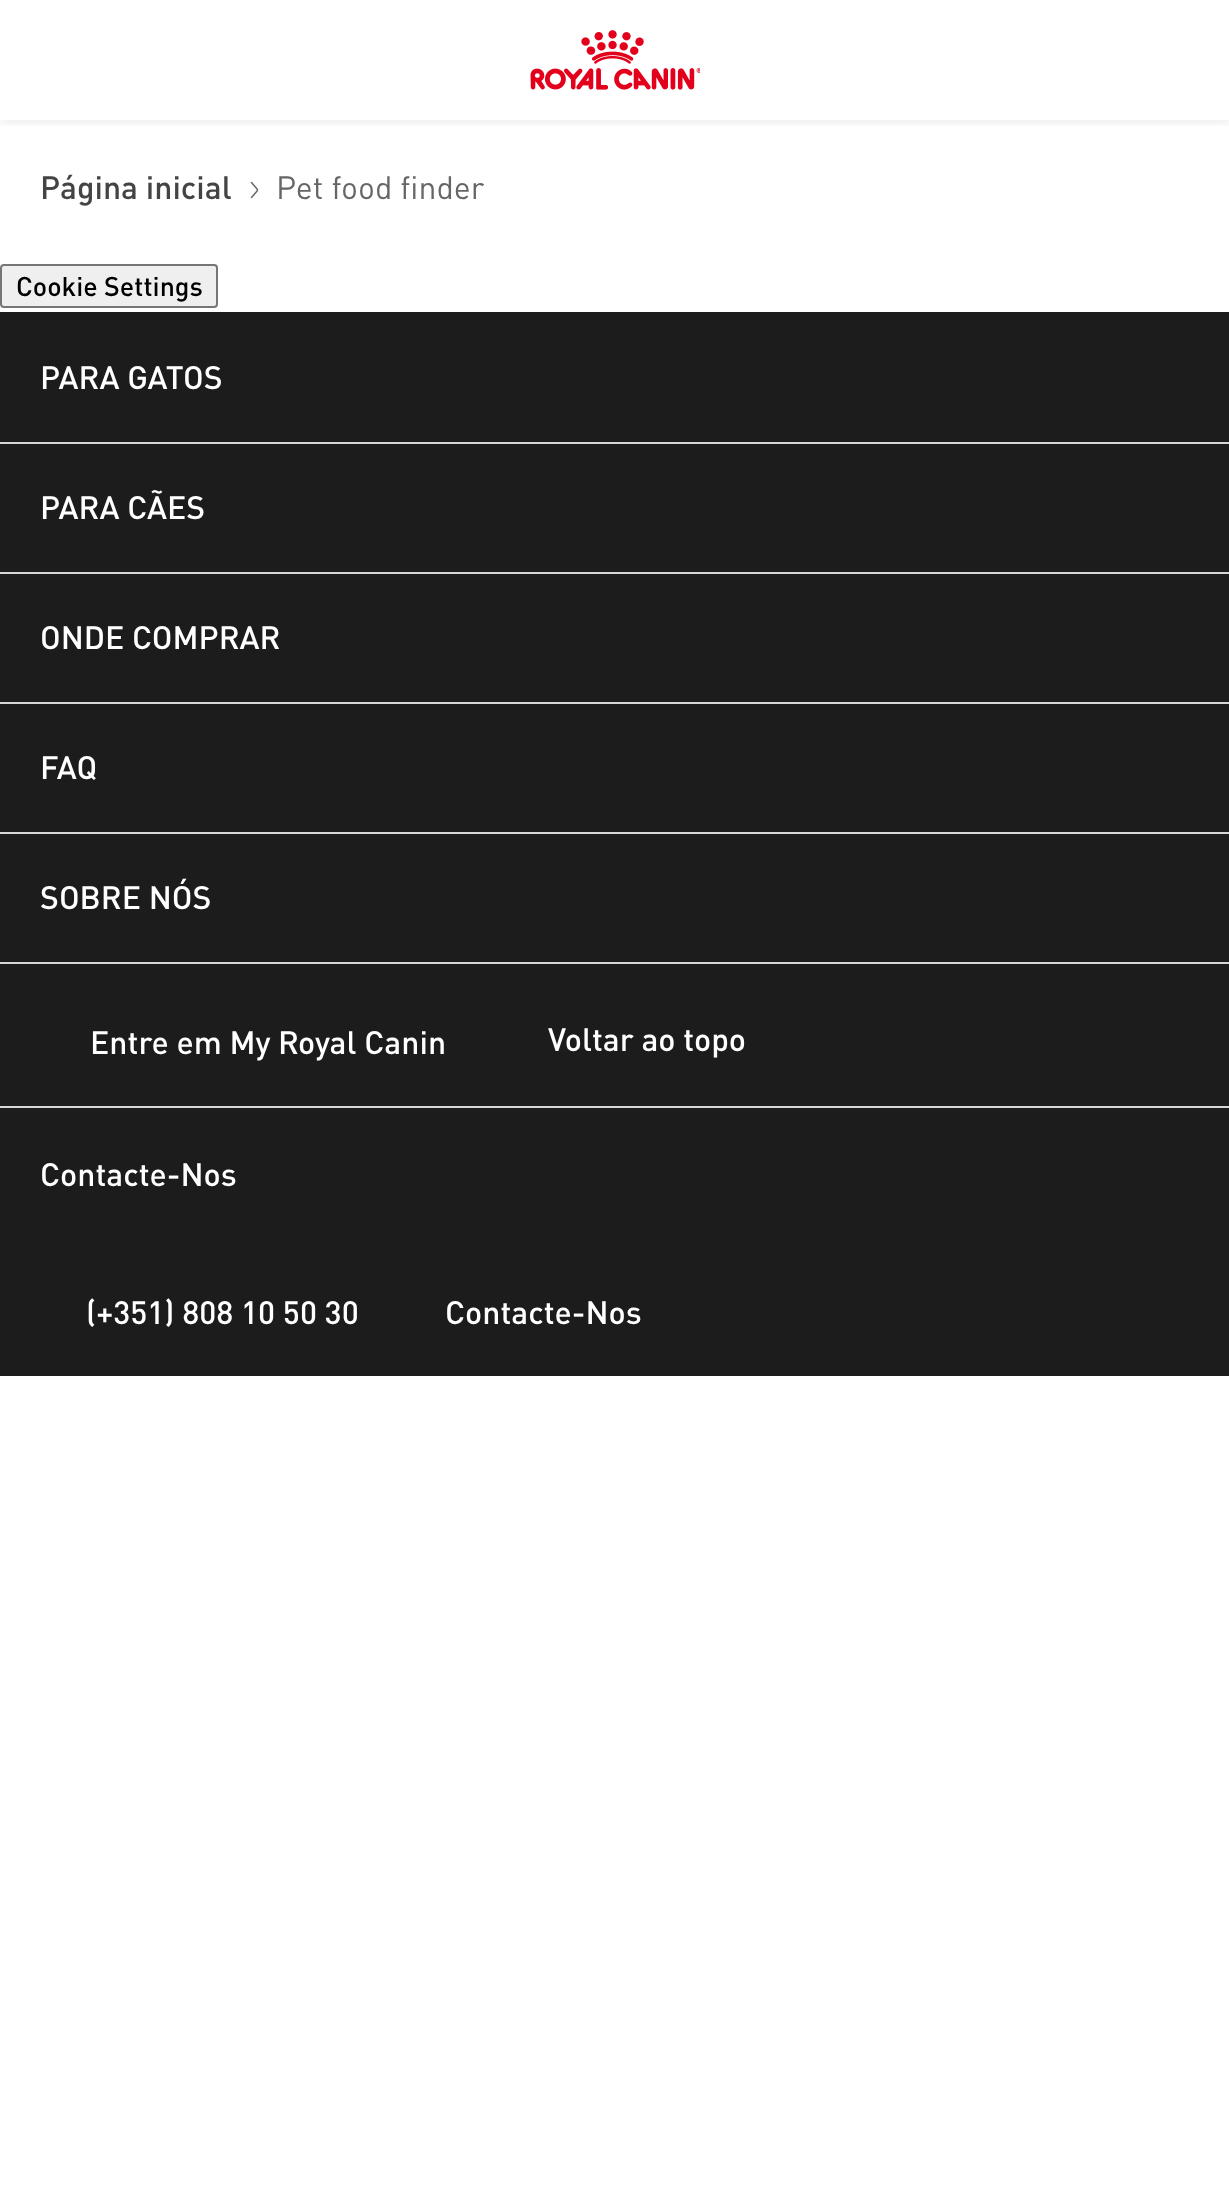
<svg xmlns="http://www.w3.org/2000/svg" xmlns:xlink="http://www.w3.org/1999/xlink" width="1229" height="2204" viewBox="0 0 1229 2204">
<style>
.cls-1{font:500 32px DIN;fill:#444444}
.cls-2{font:32px DIN;fill:#666666}
.cls-3{font:500 26.75px DIN;fill:#000000}
.cls-4{font:500 32px DIN;fill:#ffffff}
</style>
<defs>
<clipPath id="clip1"><rect x="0" y="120" width="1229" height="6"/></clipPath>
</defs>
<rect width="100%" height="100%" fill="#ffffff"/>
<g clip-path="url(#clip1)">
<rect fill="#000000" fill-opacity="0.06" filter="blur(4px)" x="0" y="4" width="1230" height="120"/>
</g>
<image xlink:href="image0.png" x="530" y="30" width="170" height="60"/>
<image xlink:href="image1.png" x="250" y="181" width="9" height="18"/>
<rect fill="#efefef" stroke="#767676" stroke-width="2" x="1" y="265" width="216" height="42" rx="3"/>
<rect fill="#1c1c1c" x="0" y="312" width="1229" height="1064"/>
<rect fill="#d7d7d7" x="0" y="962" width="1229" height="2"/>
<rect fill="#d7d7d7" x="0" y="442" width="1229" height="2"/>
<rect fill="#d7d7d7" x="0" y="572" width="1229" height="2"/>
<rect fill="#d7d7d7" x="0" y="702" width="1229" height="2"/>
<rect fill="#d7d7d7" x="0" y="832" width="1229" height="2"/>
<rect fill="#d7d7d7" x="0" y="1106" width="1229" height="2"/>
<text class="cls-1" x="40" y="199">Página inicial</text>
<text class="cls-2" x="276" y="199">Pet food finder</text>
<text class="cls-3" x="16" y="296">Cookie Settings</text>
<text class="cls-4" x="40" y="389">PARA GATOS</text>
<text class="cls-4" x="40" y="519">PARA CÃES</text>
<text class="cls-4" x="40" y="649">ONDE COMPRAR</text>
<text class="cls-4" x="40" y="779">FAQ</text>
<text class="cls-4" x="40" y="909">SOBRE NÓS</text>
<text class="cls-4" x="90" y="1054">Entre em My Royal Canin</text>
<text class="cls-4" x="548" y="1051">Voltar ao topo</text>
<text class="cls-4" x="40" y="1186">Contacte-Nos</text>
<text class="cls-4" x="86" y="1324">(+351) 808 10 50 30</text>
<text class="cls-4" x="445" y="1324">Contacte-Nos</text>
</svg>
